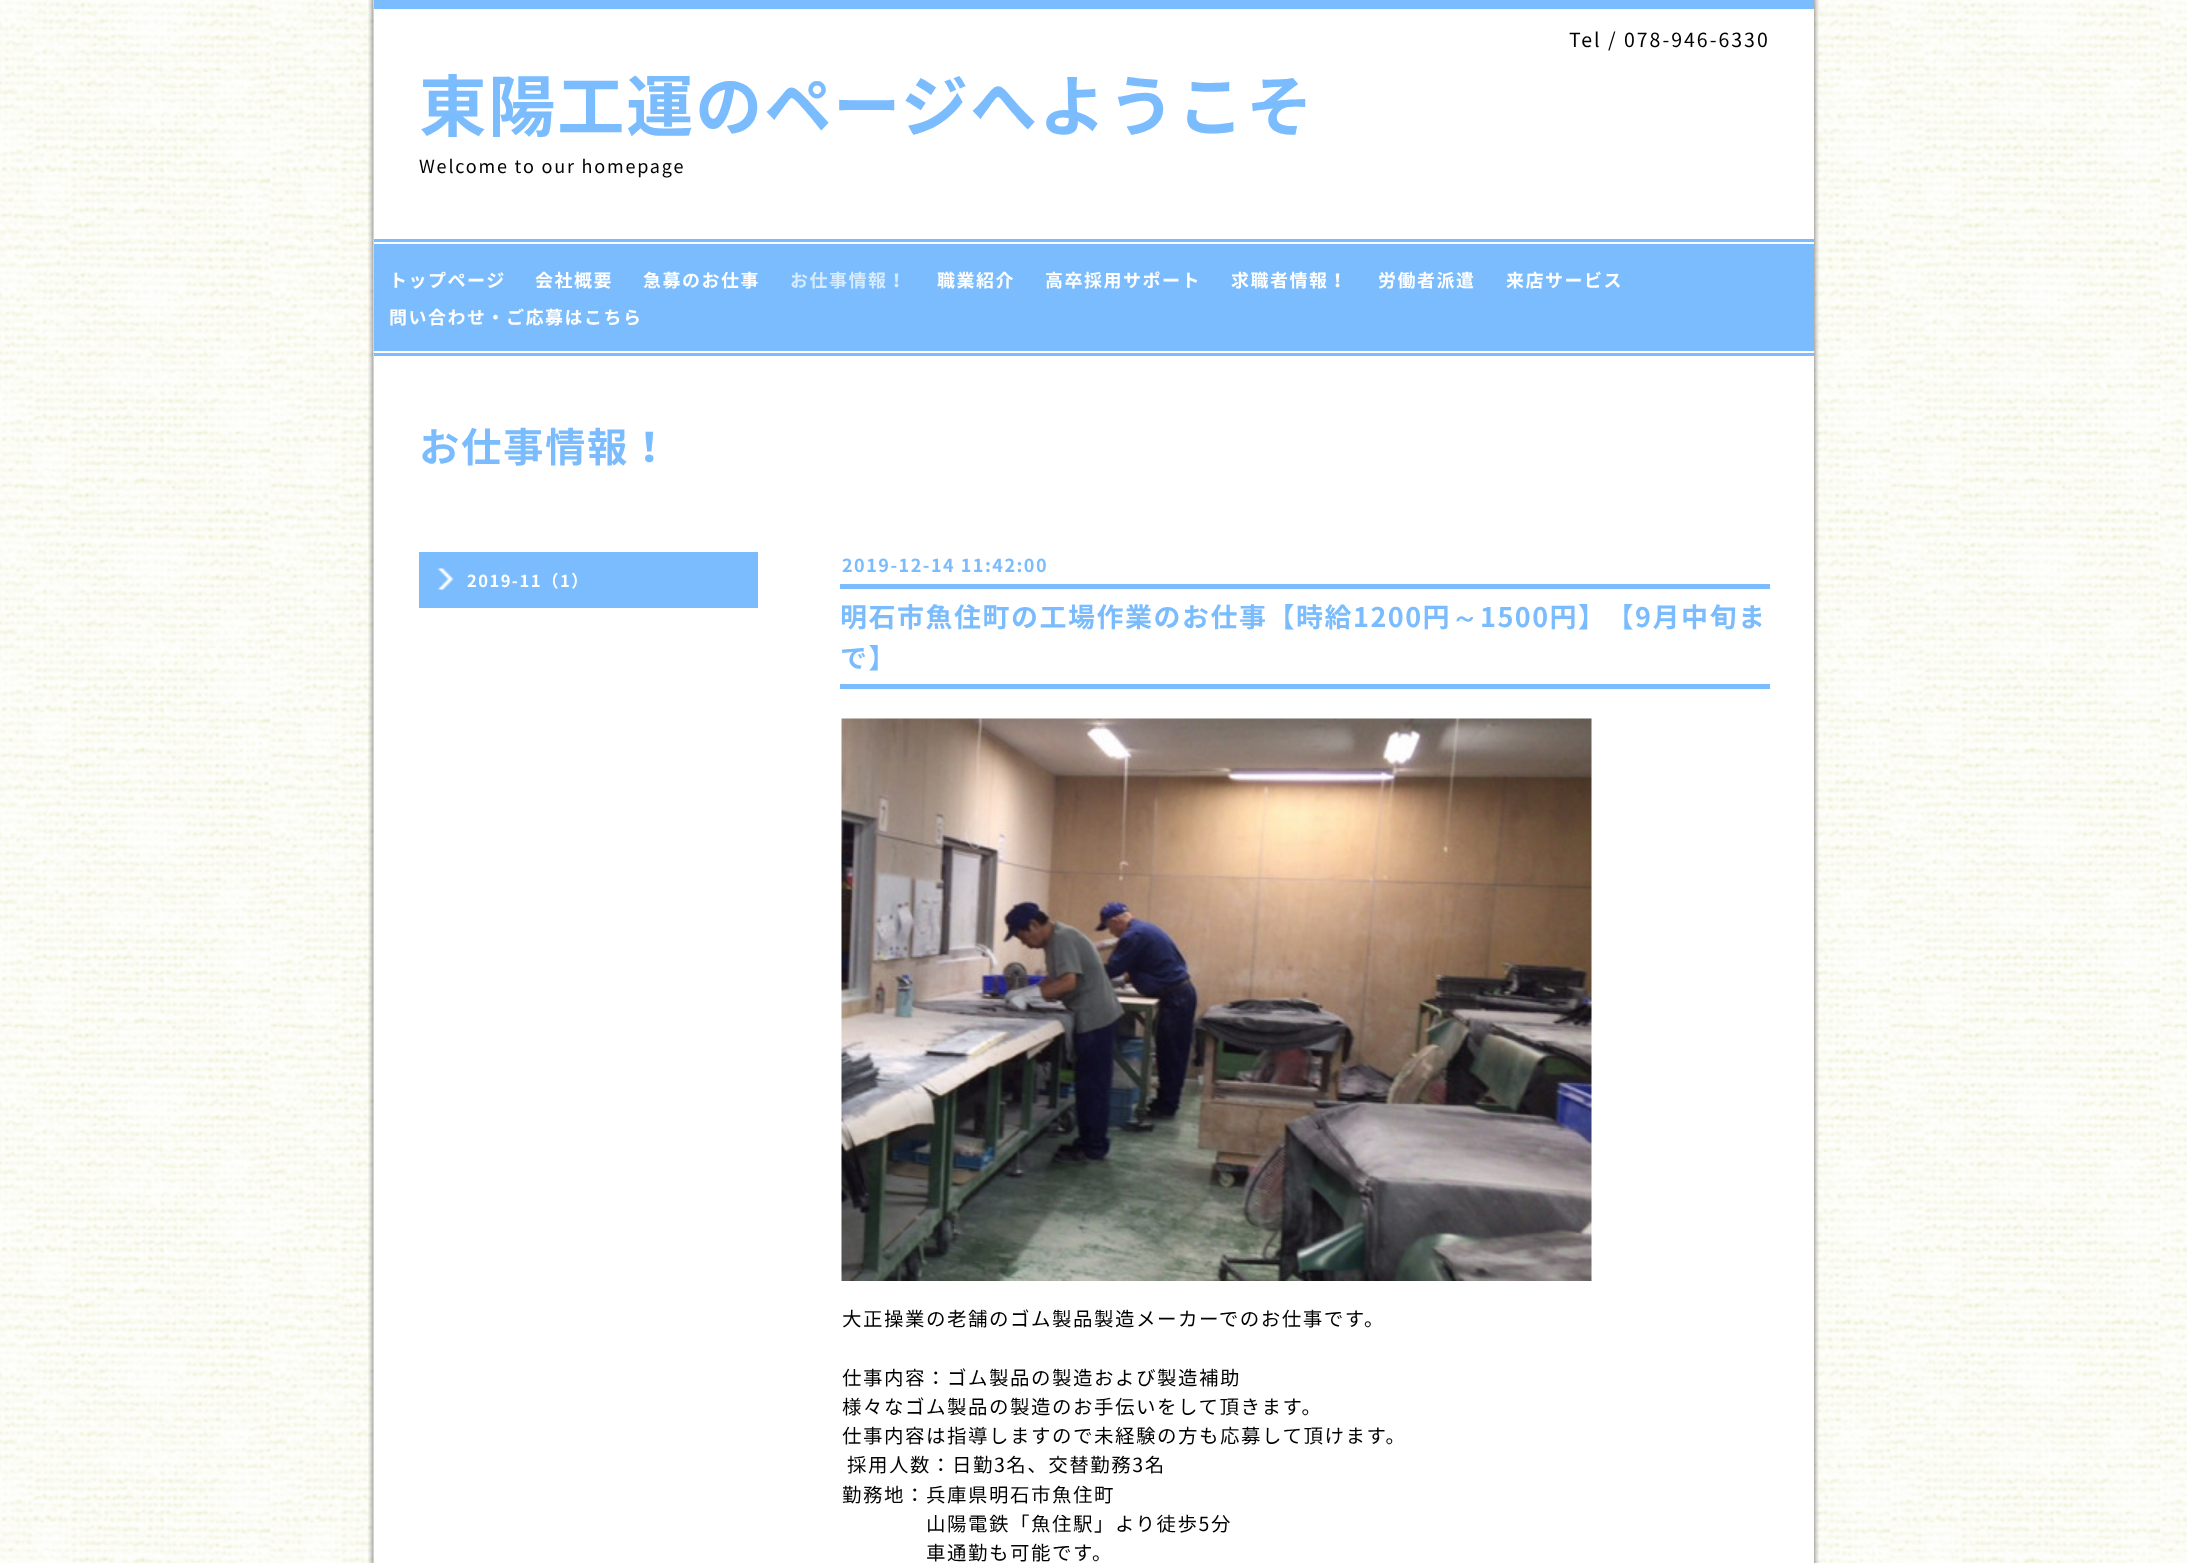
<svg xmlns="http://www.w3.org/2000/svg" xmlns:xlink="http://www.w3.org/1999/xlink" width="2187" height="1563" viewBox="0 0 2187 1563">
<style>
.cls-1{font:19.5px Noto Sans JP;letter-spacing:2px;fill:#000000}
.cls-2{font:bold 67.5px Noto Sans JP;letter-spacing:1.5px;fill:#7abcfd}
.cls-3{font:18px Noto Sans JP;letter-spacing:1.8px;fill:#000000}
.cls-4{font:bold 18px Noto Sans JP;letter-spacing:1.5px;fill:#ffffff}
.cls-5{font:bold 18px Noto Sans JP;letter-spacing:1.5px;fill:#d7ebfe}
.cls-6{font:bold 40.5px Noto Sans JP;letter-spacing:1.5px;fill:#7abcfd}
.cls-7{font:bold 18px Noto Sans JP;letter-spacing:1.5px;fill:#7abcfd}
.cls-8{font:bold 27px Noto Sans JP;letter-spacing:1.5px;fill:#7abcfd}
.cls-9{font:bold 27px WenQuanYi Zen Hei;letter-spacing:1.5px;fill:#7abcfd}
.cls-10{font:19.5px Noto Sans JP;letter-spacing:1.5px;fill:#000000}
.cls-11{font:bold 16.5px Noto Sans JP;letter-spacing:1.5px;fill:#ffffff}
</style>
<rect width="100%" height="100%" fill="#ffffff"/>
<image xlink:href="image0.png" x="0" y="0" width="2187" height="1563"/>
<image xlink:href="image1.png" x="368" y="0" width="1451" height="1563"/>
<rect fill="#ffffff" x="1813" y="9" width="1" height="1554"/>
<rect fill="#7abcfd" x="374" y="0" width="1440" height="9"/>
<rect fill="#7abcfd" x="374" y="239" width="1440" height="117"/>
<rect fill="#ffffff" x="374" y="242" width="1440" height="2"/>
<rect fill="#ffffff" x="374" y="351" width="1440" height="2"/>
<rect fill="#7abcfd" x="840" y="584" width="930" height="5"/>
<rect fill="#7abcfd" x="840" y="684" width="930" height="5"/>
<image xlink:href="image2.png" x="841" y="718" width="751" height="563"/>
<rect fill="#7abcfd" x="419" y="552" width="339" height="56"/>
<image xlink:href="image3.png" x="437" y="568" width="17" height="22"/>
<text class="cls-1" x="1569" y="47">Tel / 078-946-6330</text>
<text class="cls-2" x="419" y="131">東陽工運のページへようこそ</text>
<text class="cls-3" x="419" y="173">Welcome to our homepage</text>
<text class="cls-4" x="389" y="287">トップページ</text>
<text class="cls-4" x="535" y="287">会社概要</text>
<text class="cls-4" x="643" y="287">急募のお仕事</text>
<text class="cls-5" x="790" y="287">お仕事情報！</text>
<text class="cls-4" x="937" y="287">職業紹介</text>
<text class="cls-4" x="1045" y="287">高卒採用サポート</text>
<text class="cls-4" x="1231" y="287">求職者情報！</text>
<text class="cls-4" x="1378" y="287">労働者派遣</text>
<text class="cls-4" x="1506" y="287">来店サービス</text>
<text class="cls-4" x="389" y="324">問い合わせ・ご応募はこちら</text>
<text class="cls-6" x="419" y="462">お仕事情報！</text>
<text class="cls-7" x="842" y="572">2019-12-14 11:42:00</text>
<text class="cls-8" x="840" y="627">明石市魚住町の工場作業のお仕事【時給1200円</text>
<text class="cls-9" x="1451" y="627">～</text>
<text class="cls-8" x="1480" y="627">1500円】【9月中旬ま</text>
<text class="cls-8" x="840" y="668">で】</text>
<text class="cls-10" x="842" y="1326">大正操業の老舗のゴム製品製造メーカーでのお仕事です。</text>
<text class="cls-10"><tspan x="842" y="1385">仕事内容：ゴム製品の製造および製造補助</tspan><tspan x="842" y="1414">様々なゴム製品の製造のお手伝いをして頂きます。</tspan><tspan x="842" y="1443">仕事内容は指導しますので未経験の方も応募して頂けます。</tspan></text>
<text class="cls-10" x="847" y="1472">採用人数：日勤3名、交替勤務3名</text>
<text class="cls-10" x="842" y="1502">勤務地：兵庫県明石市魚住町</text>
<text class="cls-10"><tspan x="926" y="1531">山陽電鉄「魚住駅」より徒歩5分</tspan><tspan x="926" y="1560">車通勤も可能です。</tspan></text>
<text class="cls-11" x="467" y="587">2019-11（1）</text>
</svg>
